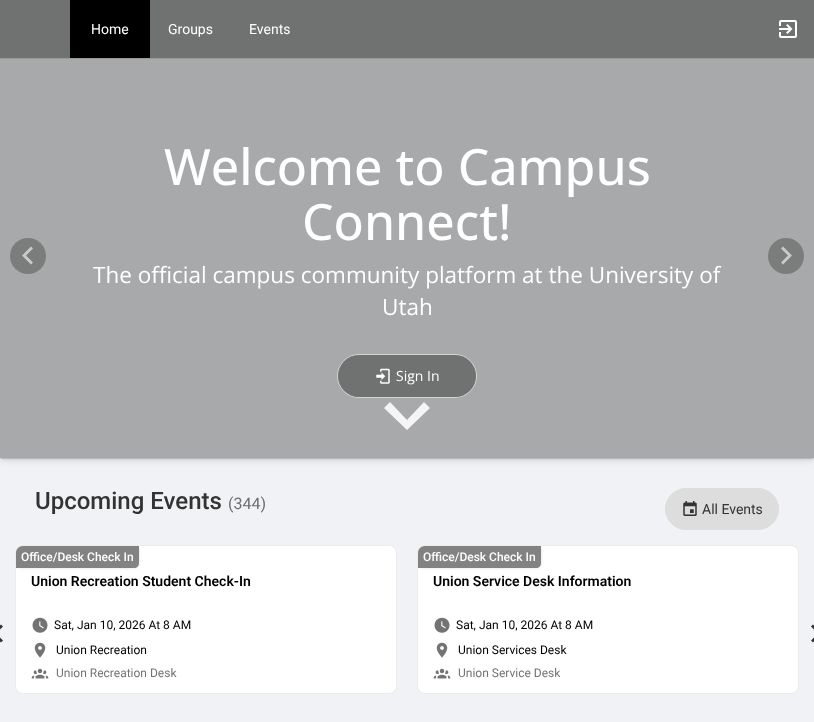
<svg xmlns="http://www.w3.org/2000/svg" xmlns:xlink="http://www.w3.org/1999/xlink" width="814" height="722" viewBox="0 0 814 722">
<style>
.cls-1{font:14px Roboto;fill:#ffffff}
.cls-2{font:500 50px Open Sans;fill:#ffffff}
.cls-3{font:22.5px Open Sans;fill:#ffffff}
.cls-4{font:14px Open Sans;fill:#ffffff}
.cls-5{font:500 24px Roboto;fill:#333333}
.cls-6{font:16px Roboto;fill:#6d6d6d}
.cls-7{font:14px Roboto;fill:#333333}
.cls-8{font:500 12px Roboto;fill:#ffffff}
.cls-9{font:600 14px Roboto;fill:#000000}
.cls-10{font:12px Roboto;fill:#000000}
.cls-11{font:12px Roboto;fill:#737373}
</style>
<defs>
<clipPath id="clip1"><rect x="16" y="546" width="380" height="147" rx="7"/></clipPath>
<clipPath id="clip2"><path d="M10 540H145V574H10ZM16 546H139V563C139 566 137 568 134 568H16Z" clip-rule="evenodd"/></clipPath>
<clipPath id="clip3"><rect x="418" y="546" width="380" height="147" rx="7"/></clipPath>
<clipPath id="clip4"><path d="M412 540H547V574H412ZM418 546H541V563C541 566 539 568 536 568H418Z" clip-rule="evenodd"/></clipPath>
</defs>
<rect width="100%" height="100%" fill="#f0f2f5"/>
<rect fill="#000000" fill-opacity="0.14" filter="blur(5px)" x="0" y="59" width="814" height="400"/>
<rect fill="#000000" fill-opacity="0.1" filter="blur(1.5px)" x="0" y="59" width="814" height="400"/>
<rect fill="#707271" x="0" y="0" width="814" height="58"/>
<rect fill="#000000" fill-opacity="0.12" filter="blur(0.5px)" x="1" y="61" width="812" height="398"/>
<rect fill="#97989a" x="0" y="58" width="814" height="1"/>
<rect fill="#000000" x="70" y="0" width="80" height="58"/>
<image xlink:href="image0.png" x="779" y="20" width="18" height="18"/>
<rect fill="#a8a9ab" x="0" y="59" width="814" height="399"/>
<circle fill="#7b7d7d" cx="28" cy="256" r="18"/>
<path fill="#cacaca" d="M33 262.5L26 255.5L33 248.5L31 246.5L22 255.5L31 264.5Z"/>
<rect fill="none" stroke="#d4d4d5" x="337.5" y="354.5" width="139" height="43" rx="21.5"/>
<rect fill="#707271" x="338" y="355" width="138" height="42" rx="21"/>
<image xlink:href="image1.png" x="376" y="368" width="14" height="16"/>
<path fill="#f5f5f8" d="M390 402L407 420L424 402L430 408L407 430L384 408Z"/>
<circle fill="#7b7d7d" cx="786" cy="256" r="18"/>
<path fill="#cacaca" d="M781 262.5L788 255.5L781 248.5L783 246.5L792 255.5L783 264.5Z"/>
<rect fill="#dddddd" stroke="#dddddd" x="665.5" y="488.5" width="113" height="41" rx="20.5"/>
<image xlink:href="image2.png" x="683" y="501" width="14" height="15"/>
<path fill="#333333" d="M3 640.5L-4 633.5L3 626.5L1 624.5L-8 633.5L1 642.5Z"/>
<rect fill="#ffffff" stroke="#ececec" x="15.5" y="545.5" width="381" height="148" rx="7.5"/>
<g clip-path="url(#clip1)">
<g clip-path="url(#clip2)">
<rect fill="#dbdbdb" filter="blur(1.5px)" x="16" y="546" width="123" height="22" rx="5"/>
</g>
</g>
<path fill="#2b2b2b" fill-opacity="0.59" d="M23 546H139V563C139 566 137 568 134 568H16V553C16 549 19 546 23 546Z"/>
<image xlink:href="image3.png" x="32" y="617" width="16" height="16"/>
<image xlink:href="image4.png" x="34" y="642" width="12" height="16"/>
<image xlink:href="image5.png" x="31" y="668" width="18" height="11"/>
<rect fill="#ffffff" stroke="#ececec" x="417.5" y="545.5" width="381" height="148" rx="7.5"/>
<g clip-path="url(#clip3)">
<g clip-path="url(#clip4)">
<rect fill="#dbdbdb" filter="blur(1.5px)" x="418" y="546" width="123" height="22" rx="5"/>
</g>
</g>
<path fill="#2b2b2b" fill-opacity="0.59" d="M425 546H541V563C541 566 539 568 536 568H418V553C418 549 421 546 425 546Z"/>
<image xlink:href="image3.png" x="434" y="617" width="16" height="16"/>
<image xlink:href="image4.png" x="436" y="642" width="12" height="16"/>
<image xlink:href="image5.png" x="433" y="668" width="18" height="11"/>
<path fill="#333333" d="M811 640.5L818 633.5L811 626.5L813 624.5L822 633.5L813 642.5Z"/>
<text class="cls-1" x="91" y="34">Home</text>
<text class="cls-1" x="168" y="34">Groups</text>
<text class="cls-1" x="249" y="34">Events</text>
<text class="cls-2" x="164" y="185">Welcome to Campus</text>
<text class="cls-2" x="302" y="240">Connect!</text>
<text class="cls-3" x="93" y="283">The official campus community platform at the University of</text>
<text class="cls-3" x="382" y="315">Utah</text>
<text class="cls-4" x="396" y="381">Sign In</text>
<text class="cls-5" x="35" y="509">Upcoming Events</text>
<text class="cls-6" x="228" y="509">(344)</text>
<text class="cls-7" x="702" y="514">All Events</text>
<text class="cls-8" x="21" y="561">Office/Desk Check In</text>
<text class="cls-9" x="31" y="586">Union Recreation Student Check-In</text>
<text class="cls-10" x="54" y="629">Sat, Jan 10, 2026 At 8 AM</text>
<text class="cls-10" x="56" y="654">Union Recreation</text>
<text class="cls-11" x="56" y="677">Union Recreation Desk</text>
<text class="cls-8" x="423" y="561">Office/Desk Check In</text>
<text class="cls-9" x="433" y="586">Union Service Desk Information</text>
<text class="cls-10" x="456" y="629">Sat, Jan 10, 2026 At 8 AM</text>
<text class="cls-10" x="458" y="654">Union Services Desk</text>
<text class="cls-11" x="458" y="677">Union Service Desk</text>
</svg>
